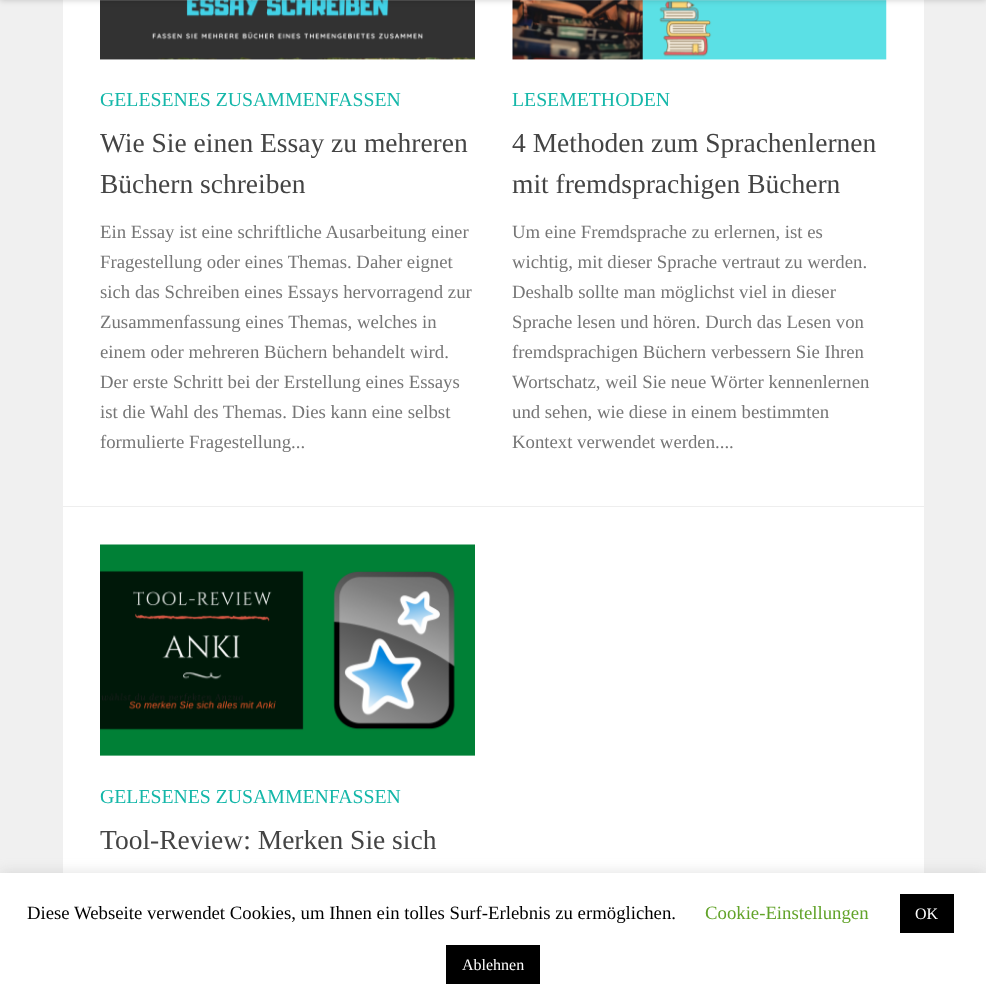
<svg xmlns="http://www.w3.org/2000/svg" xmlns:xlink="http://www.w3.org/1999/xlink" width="986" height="1004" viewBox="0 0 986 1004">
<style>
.cls-1{font:19.75px Liberation Serif;fill:#14b7a9}
.cls-2{font:27.5px Liberation Serif;fill:#444444}
.cls-3{font:18.75px Liberation Serif;fill:#767676}
.cls-4{font:18.75px Liberation Serif;fill:#000000}
.cls-5{font:18.75px Liberation Serif;fill:#62a329}
.cls-6{font:16px Liberation Serif;fill:#ffffff}
</style>
<rect width="100%" height="100%" fill="#ffffff"/>
<image xlink:href="image0.png" x="100" y="0" width="375" height="60"/>
<image xlink:href="image1.png" x="512" y="0" width="375" height="60"/>
<rect fill="#ffffff" fill-opacity="0.15" x="100" y="0" width="787" height="1"/>
<rect fill="#f0f0f0" x="0" y="0" width="63" height="873"/>
<rect fill="#f0f0f0" x="924" y="0" width="62" height="873"/>
<rect fill="#000000" fill-opacity="0.2" filter="blur(3px)" x="0" y="-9" width="986" height="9"/>
<rect fill="#eeeeee" x="63" y="506" width="861" height="1"/>
<image xlink:href="image2.png" x="100" y="544" width="375" height="212"/>
<rect fill="#acabab" fill-opacity="0.3" filter="blur(6px)" x="0" y="871" width="986" height="133"/>
<rect fill="#ffffff" x="0" y="873" width="986" height="131"/>
<rect fill="#000000" x="900" y="894" width="54" height="39"/>
<rect fill="#000000" x="446" y="945" width="94" height="39"/>
<text class="cls-1" x="100" y="106">GELESENES ZUSAMMENFASSEN</text>
<text class="cls-2"><tspan x="100" y="152">Wie Sie einen Essay zu mehreren</tspan><tspan x="100" y="193">Büchern schreiben</tspan></text>
<text class="cls-3"><tspan x="100" y="238">Ein Essay ist eine schriftliche Ausarbeitung einer</tspan><tspan x="100" y="268">Fragestellung oder eines Themas. Daher eignet</tspan><tspan x="100" y="298">sich das Schreiben eines Essays hervorragend zur</tspan><tspan x="100" y="328">Zusammenfassung eines Themas, welches in</tspan><tspan x="100" y="358">einem oder mehreren Büchern behandelt wird.</tspan><tspan x="100" y="388">Der erste Schritt bei der Erstellung eines Essays</tspan><tspan x="100" y="418">ist die Wahl des Themas. Dies kann eine selbst</tspan><tspan x="100" y="448">formulierte Fragestellung...</tspan></text>
<text class="cls-1" x="512" y="106">LESEMETHODEN</text>
<text class="cls-2"><tspan x="512" y="152">4 Methoden zum Sprachenlernen</tspan><tspan x="512" y="193">mit fremdsprachigen Büchern</tspan></text>
<text class="cls-3"><tspan x="512" y="238">Um eine Fremdsprache zu erlernen, ist es</tspan><tspan x="512" y="268">wichtig, mit dieser Sprache vertraut zu werden.</tspan><tspan x="512" y="298">Deshalb sollte man möglichst viel in dieser</tspan><tspan x="512" y="328">Sprache lesen und hören. Durch das Lesen von</tspan><tspan x="512" y="358">fremdsprachigen Büchern verbessern Sie Ihren</tspan><tspan x="512" y="388">Wortschatz, weil Sie neue Wörter kennenlernen</tspan><tspan x="512" y="418">und sehen, wie diese in einem bestimmten</tspan><tspan x="512" y="448">Kontext verwendet werden....</tspan></text>
<text class="cls-1" x="100" y="803">GELESENES ZUSAMMENFASSEN</text>
<text class="cls-2" x="100" y="849">Tool-Review: Merken Sie sich</text>
<text class="cls-4" x="27" y="919">Diese Webseite verwendet Cookies, um Ihnen ein tolles Surf-Erlebnis zu ermöglichen.</text>
<text class="cls-5" x="705" y="919">Cookie-Einstellungen</text>
<text class="cls-6" x="915" y="919">OK</text>
<text class="cls-6" x="462" y="970">Ablehnen</text>
</svg>
